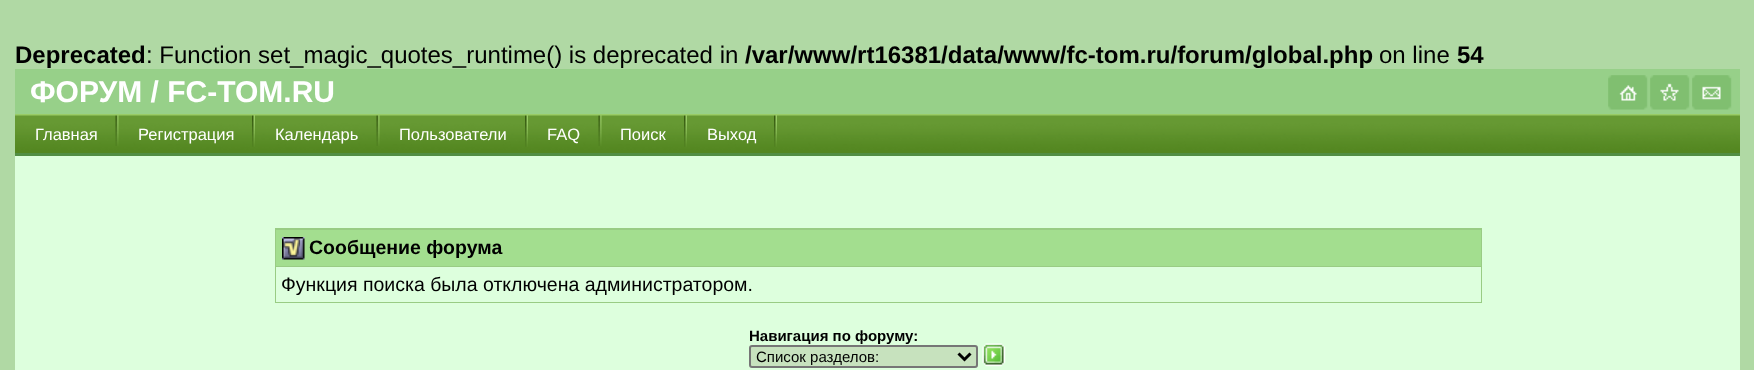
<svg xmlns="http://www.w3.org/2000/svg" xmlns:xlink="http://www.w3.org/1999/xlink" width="1754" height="370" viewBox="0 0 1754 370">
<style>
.cls-1{font:bold 24px Liberation Sans;fill:#000000}
.cls-2{font:24px Liberation Sans;fill:#000000}
.cls-3{font:bold 30px Liberation Sans;fill:#ffffff}
.cls-4{font:16.5px Liberation Sans;fill:#ffffff}
.cls-5{font:bold 19.5px Liberation Sans;fill:#000000}
.cls-6{font:19.5px Liberation Sans;fill:#000000}
.cls-7{font:bold 15px Liberation Sans;fill:#000000}
.cls-8{font:15px Liberation Sans;fill:#000000}
</style>
<rect width="100%" height="100%" fill="#b0d9a4"/>
<rect fill="#97d089" x="15" y="69" width="1725" height="45"/>
<image xlink:href="image0.png" x="1608" y="75" width="40" height="35"/>
<image xlink:href="image1.png" x="1650" y="75" width="40" height="35"/>
<image xlink:href="image2.png" x="1692" y="75" width="40" height="35"/>
<image xlink:href="image3.png" x="15" y="114" width="1725" height="39"/>
<rect fill="#528e44" x="15" y="153" width="1725" height="3"/>
<image xlink:href="image4.png" x="115" y="115" width="4" height="31"/>
<image xlink:href="image5.png" x="252" y="115" width="3" height="32"/>
<image xlink:href="image6.png" x="376" y="115" width="4" height="31"/>
<image xlink:href="image7.png" x="525" y="115" width="3" height="32"/>
<image xlink:href="image8.png" x="598" y="115" width="4" height="31"/>
<image xlink:href="image5.png" x="684" y="115" width="3" height="32"/>
<image xlink:href="image5.png" x="774" y="115" width="3" height="32"/>
<rect fill="#ddffdd" x="15" y="156" width="1725" height="214"/>
<rect fill="#99cc84" x="275" y="228" width="1207" height="75"/>
<rect fill="#a3de8f" x="276" y="230" width="1205" height="36"/>
<image xlink:href="image9.png" x="282" y="237" width="23" height="23"/>
<rect fill="#ddffdd" x="276" y="267" width="1205" height="35"/>
<rect fill="#c7e2be" stroke="#767676" stroke-width="2" x="750" y="346" width="227" height="21" rx="2"/>
<path fill="none" stroke="#000000" stroke-width="3" d="M958.5 353.5L964.5 359.5L970.5 353.5"/>
<image xlink:href="image10.png" x="982" y="343" width="24" height="24"/>
<text class="cls-1" x="15" y="63">Deprecated</text>
<text class="cls-2" x="146" y="63">: Function set_magic_quotes_runtime() is deprecated in</text>
<text class="cls-1" x="745" y="63">/var/www/rt16381/data/www/fc-tom.ru/forum/global.php</text>
<text class="cls-2" x="1379" y="63">on line</text>
<text class="cls-1" x="1457" y="63">54</text>
<text class="cls-3" x="30" y="102">ФОРУМ / FC-TOM.RU</text>
<text class="cls-4" x="35" y="140">Главная</text>
<text class="cls-4" x="138" y="140">Регистрация</text>
<text class="cls-4" x="275" y="140">Календарь</text>
<text class="cls-4" x="399" y="140">Пользователи</text>
<text class="cls-4" x="547" y="140">FAQ</text>
<text class="cls-4" x="620" y="140">Поиск</text>
<text class="cls-4" x="707" y="140">Выход</text>
<text class="cls-5" x="309" y="254">Сообщение форума</text>
<text class="cls-6" x="281" y="291">Функция поиска была отключена администратором.</text>
<text class="cls-7" x="749" y="341">Навигация по форуму:</text>
<text class="cls-8" x="756" y="362">Список разделов:</text>
</svg>
